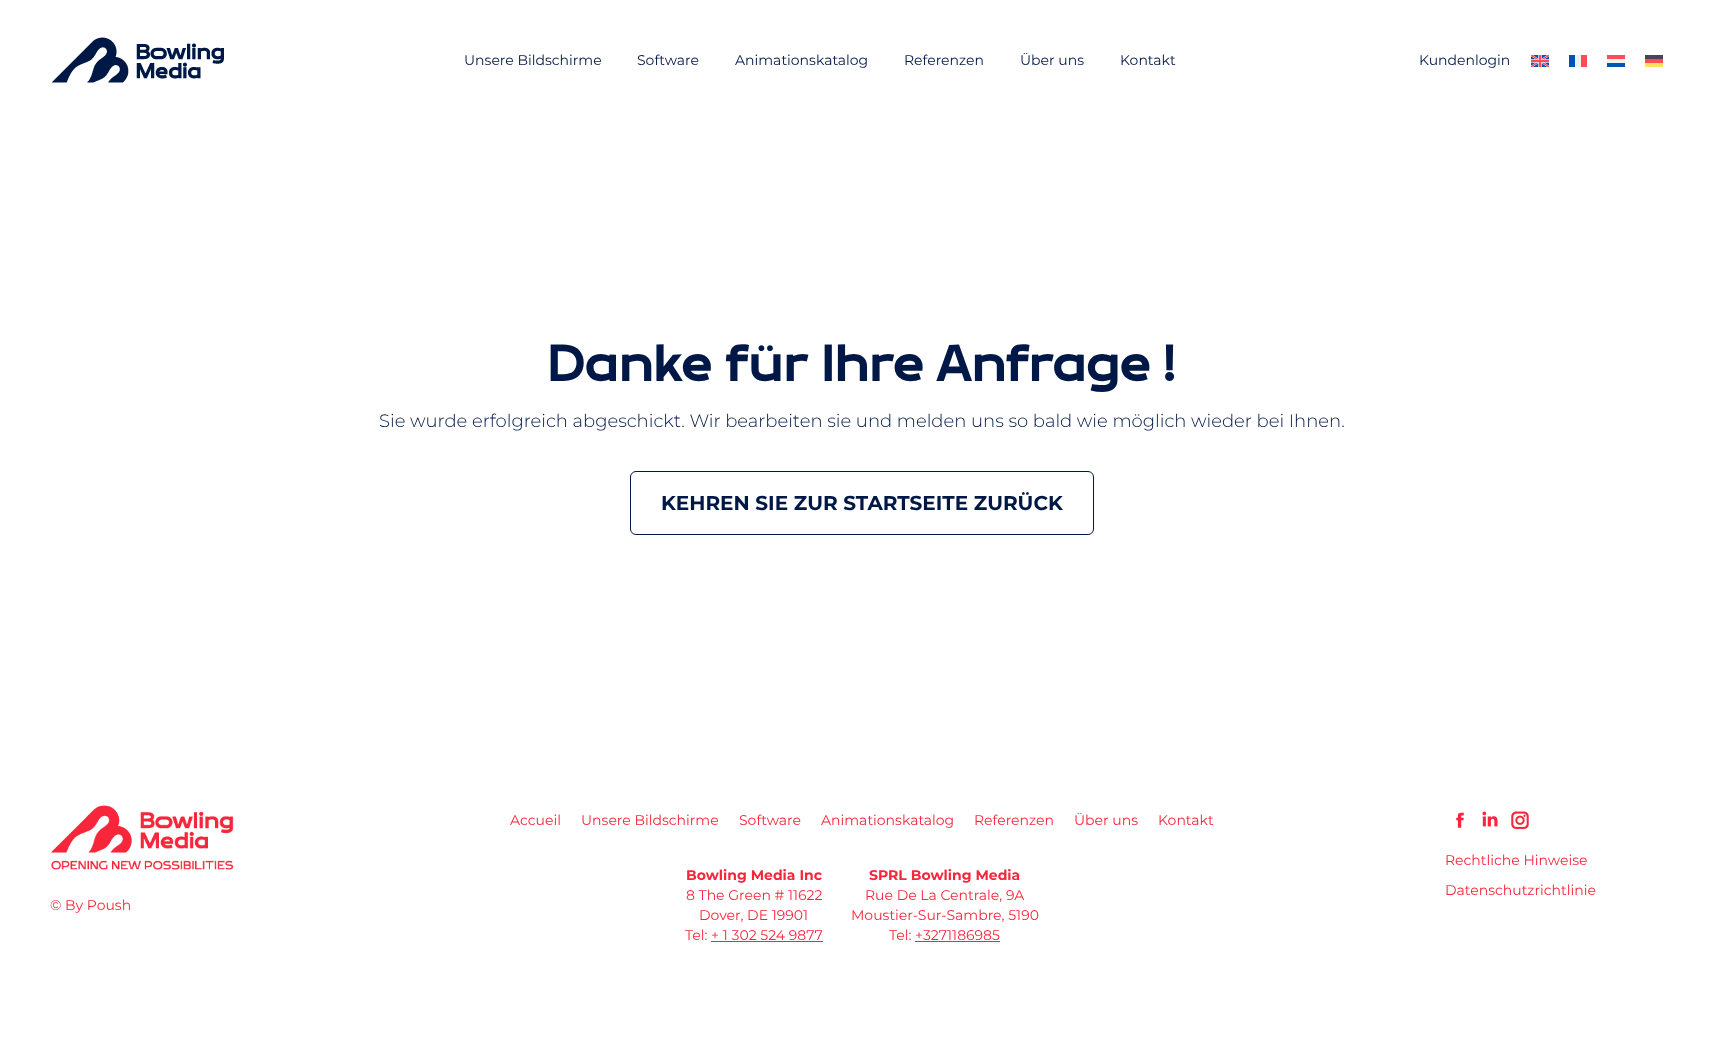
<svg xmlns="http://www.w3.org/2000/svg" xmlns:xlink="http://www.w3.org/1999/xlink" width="1724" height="1058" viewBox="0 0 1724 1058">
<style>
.cls-1{font:100 14px Montserrat;fill:#001846}
.cls-2{font:bold 53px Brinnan;fill:#001846}
.cls-3{font:100 18px 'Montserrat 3';fill:#001846}
.cls-4{font:100 20px 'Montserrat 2';fill:#001846}
.cls-5{font:100 14px Montserrat;fill:#f7263b}
.cls-6{font:100 14px 'Montserrat 2';fill:#f7263b}
</style>
<rect width="100%" height="100%" fill="#ffffff"/>
<image xlink:href="image0.png" x="52" y="37" width="172" height="46"/>
<image xlink:href="image1.png" x="1531" y="55" width="18" height="12"/>
<rect fill="#0052b4" x="1569" y="55" width="6" height="12"/>
<rect fill="#f0f0f0" x="1575" y="55" width="6" height="12"/>
<rect fill="#ff4b55" x="1581" y="55" width="6" height="12"/>
<rect fill="#ff4b55" x="1607" y="55" width="18" height="4"/>
<rect fill="#f0f0f0" x="1607" y="59" width="18" height="4"/>
<rect fill="#0052b4" x="1607" y="63" width="18" height="4"/>
<rect fill="#464655" x="1645" y="55" width="18" height="4"/>
<rect fill="#ff4b55" x="1645" y="59" width="18" height="4"/>
<rect fill="#ffe15a" x="1645" y="63" width="18" height="4"/>
<rect fill="none" stroke="#001846" x="630.5" y="471.5" width="463" height="63" rx="5.5"/>
<rect fill="#f7263b" x="711" y="941" width="112" height="1"/>
<rect fill="#f7263b" x="915" y="941" width="85" height="1"/>
<image xlink:href="image2.png" x="1456" y="812" width="8" height="16"/>
<image xlink:href="image3.png" x="1482" y="811" width="16" height="16"/>
<image xlink:href="image4.png" x="1511" y="811" width="18" height="18"/>
<image xlink:href="image5.png" x="50" y="805" width="184" height="65"/>
<text class="cls-1" x="464" y="65">Unsere Bildschirme</text>
<text class="cls-1" x="637" y="65">Software</text>
<text class="cls-1" x="735" y="65">Animationskatalog</text>
<text class="cls-1" x="904" y="65">Referenzen</text>
<text class="cls-1" x="1020" y="65">Über uns</text>
<text class="cls-1" x="1120" y="65">Kontakt</text>
<text class="cls-1" x="1419" y="65">Kundenlogin</text>
<text class="cls-2" x="548" y="381">Danke für Ihre Anfrage !</text>
<text class="cls-3" x="379" y="427">Sie wurde erfolgreich abgeschickt. Wir bearbeiten sie und melden uns so bald wie möglich wieder bei Ihnen.</text>
<text class="cls-4" x="661" y="510">KEHREN SIE ZUR STARTSEITE ZURÜCK</text>
<text class="cls-5" x="510" y="825">Accueil</text>
<text class="cls-5" x="581" y="825">Unsere Bildschirme</text>
<text class="cls-5" x="739" y="825">Software</text>
<text class="cls-5" x="821" y="825">Animationskatalog</text>
<text class="cls-5" x="974" y="825">Referenzen</text>
<text class="cls-5" x="1074" y="825">Über uns</text>
<text class="cls-5" x="1158" y="825">Kontakt</text>
<text class="cls-6" x="686" y="880">Bowling Media Inc</text>
<text class="cls-5" x="686" y="900">8 The Green # 11622</text>
<text class="cls-5" x="699" y="920">Dover, DE 19901</text>
<text class="cls-5" x="685" y="940">Tel: + 1 302 524 9877</text>
<text class="cls-6" x="869" y="880">SPRL Bowling Media</text>
<text class="cls-5" x="865" y="900">Rue De La Centrale, 9A</text>
<text class="cls-5" x="851" y="920">Moustier-Sur-Sambre, 5190</text>
<text class="cls-5" x="889" y="940">Tel: +3271186985</text>
<text class="cls-5" x="1445" y="865">Rechtliche Hinweise</text>
<text class="cls-5" x="1445" y="895">Datenschutzrichtlinie</text>
<text class="cls-5" x="50" y="910">© By Poush</text>
</svg>
